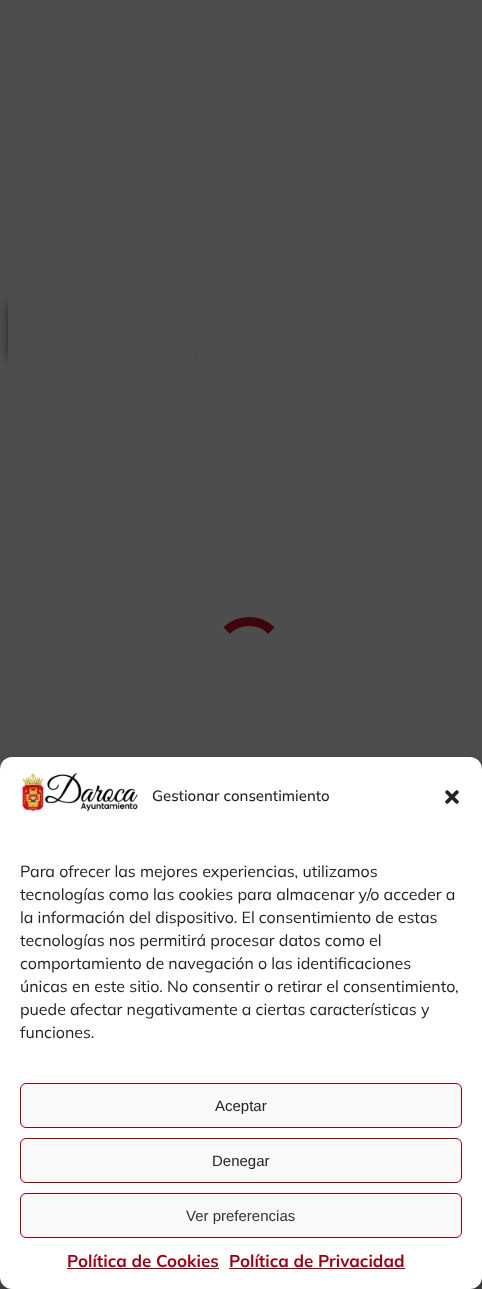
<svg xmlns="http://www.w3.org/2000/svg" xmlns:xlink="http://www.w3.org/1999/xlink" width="482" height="1289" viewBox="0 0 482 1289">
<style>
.cls-1{font:500 15px Mulish;fill:#222222}
.cls-2{font:16px Mulish;fill:#222222}
.cls-3{font:15px Liberation Sans;fill:#222222}
.cls-4{font:15px Liberation Sans;fill:#333333}
.cls-5{font:bold 17px Mulish;fill:#960012}
</style>
<rect width="100%" height="100%" fill="#4d4d4d"/>
<rect fill="#000000" fill-opacity="0.5" filter="blur(5px)" x="8" y="298" width="180" height="66" rx="15"/>
<rect fill="#4d4d4d" x="8" y="291" width="187" height="80"/>
<path fill="none" stroke="#3e050b" stroke-width="9" d="M226.5 630.5C239 618.5 259 618.5 271.5 630.5"/>
<rect fill="#000000" fill-opacity="0.23" filter="blur(3px)" x="0" y="763" width="482" height="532" rx="12"/>
<rect fill="#000000" fill-opacity="0.19" filter="blur(10px)" x="0" y="767" width="482" height="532" rx="12"/>
<rect fill="#ffffff" x="0" y="757" width="482" height="532" rx="12"/>
<image xlink:href="image0.png" x="22" y="772" width="116" height="40"/>
<image xlink:href="image1.png" x="445" y="790" width="14" height="14"/>
<rect fill="#f9f9f9" stroke="#960012" x="20.5" y="1083.5" width="441" height="44" rx="5.5"/>
<rect fill="#f9f9f9" stroke="#960012" x="20.5" y="1138.5" width="441" height="44" rx="5.5"/>
<rect fill="#f9f9f9" stroke="#960012" x="20.5" y="1193.5" width="441" height="44" rx="5.5"/>
<rect fill="#960012" x="67" y="1268" width="152" height="1"/>
<rect fill="#960012" x="229" y="1268" width="176" height="1"/>
<text class="cls-1" x="152" y="801">Gestionar consentimiento</text>
<text class="cls-2"><tspan x="20" y="877">Para ofrecer las mejores experiencias, utilizamos</tspan><tspan x="20" y="900">tecnologías como las cookies para almacenar y/o acceder a</tspan><tspan x="20" y="923">la información del dispositivo. El consentimiento de estas</tspan><tspan x="20" y="946">tecnologías nos permitirá procesar datos como el</tspan><tspan x="20" y="969">comportamiento de navegación o las identificaciones</tspan><tspan x="20" y="992">únicas en este sitio. No consentir o retirar el consentimiento,</tspan><tspan x="20" y="1015">puede afectar negativamente a ciertas características y</tspan><tspan x="20" y="1038">funciones.</tspan></text>
<text class="cls-3" x="215" y="1111">Aceptar</text>
<text class="cls-3" x="212" y="1166">Denegar</text>
<text class="cls-4" x="186" y="1221">Ver preferencias</text>
<text class="cls-5" x="67" y="1267">Política de Cookies</text>
<text class="cls-5" x="229" y="1267">Política de Privacidad</text>
</svg>
